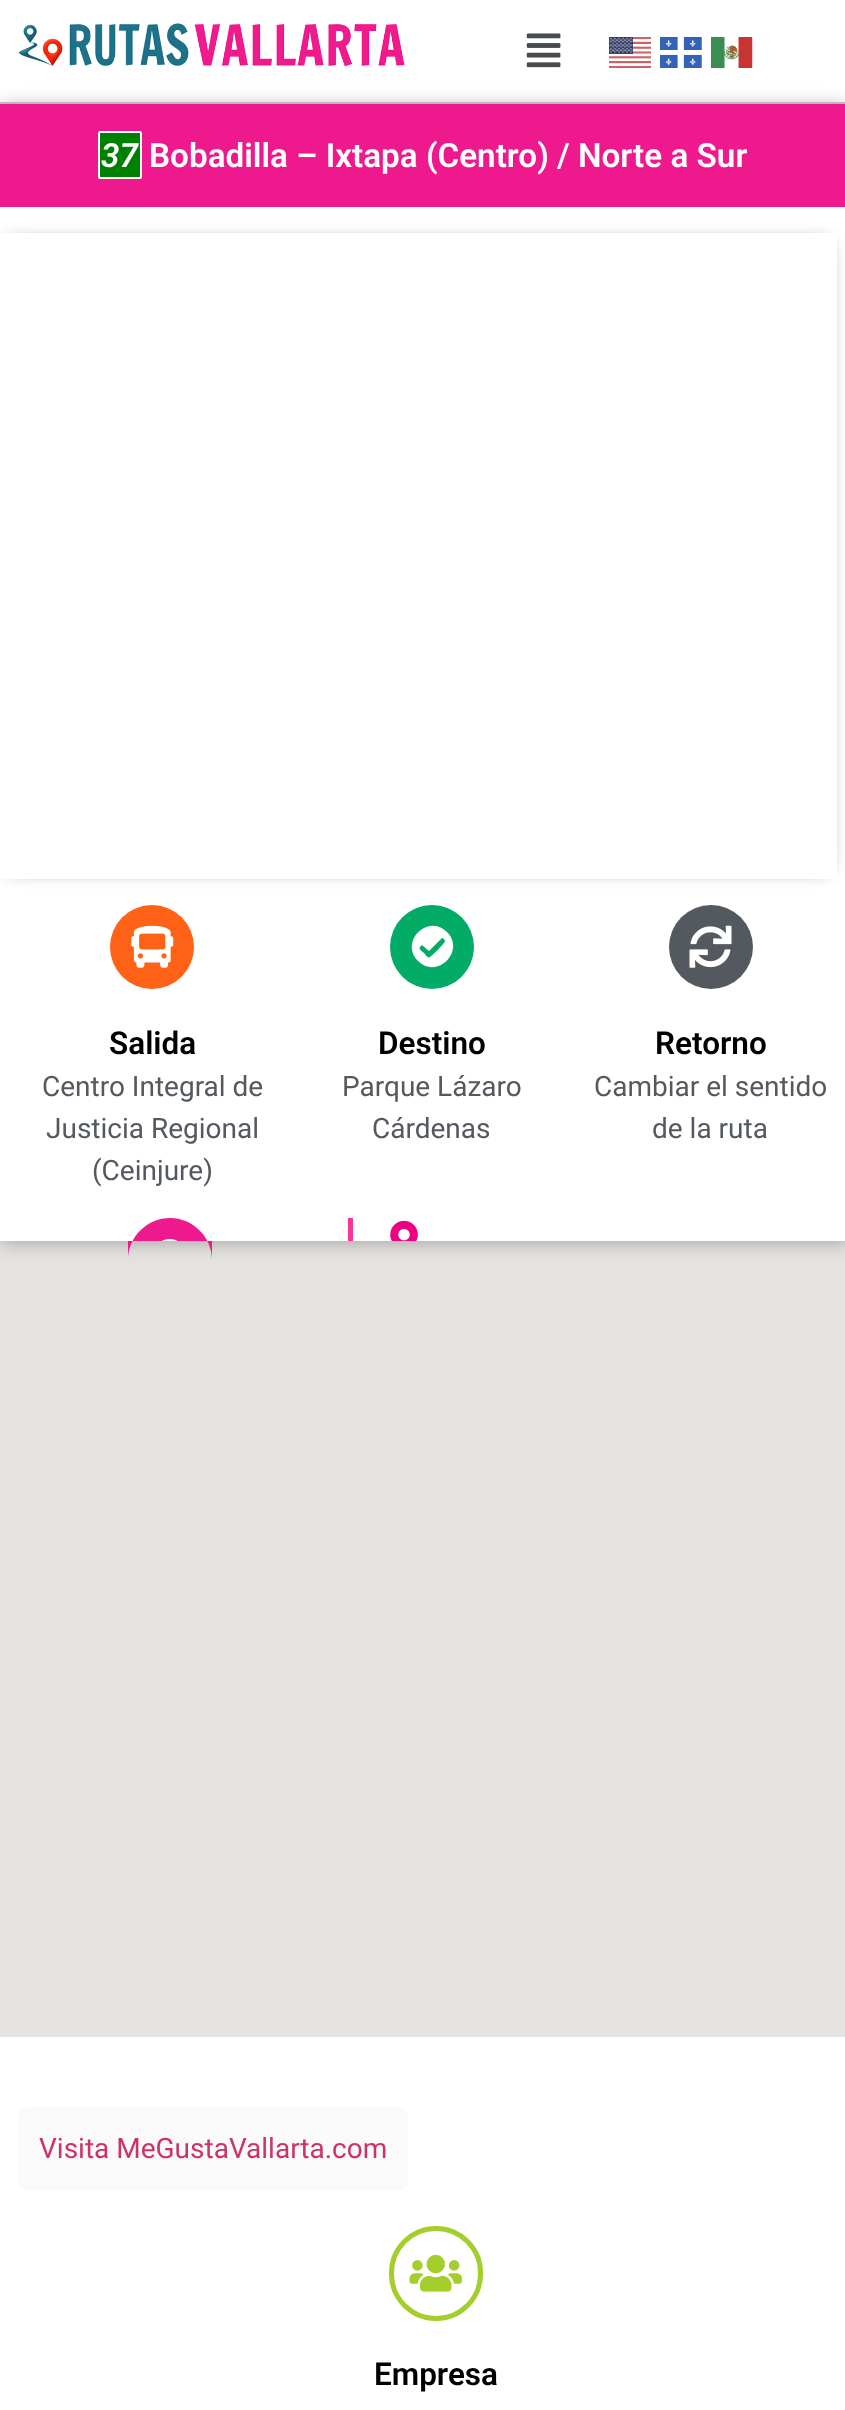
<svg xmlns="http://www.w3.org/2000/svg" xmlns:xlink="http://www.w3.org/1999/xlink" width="845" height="2410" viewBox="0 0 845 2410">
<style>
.cls-1{font:italic 600 33.25px Roboto;fill:#ffffff}
.cls-2{font:600 33.25px Roboto;fill:#ffffff}
.cls-3{font:600 31.5px Roboto;fill:#000000}
.cls-4{font:28px Roboto;fill:#54595f}
.cls-5{font:28px Roboto;fill:#cc3366}
</style>
<defs>
<clipPath id="clip1"><path d="M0 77H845V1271H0ZM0 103H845V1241H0Z" clip-rule="evenodd"/></clipPath>
<clipPath id="clip2"><path d="M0 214H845V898H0ZM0 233H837V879H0Z" clip-rule="evenodd"/></clipPath>
</defs>
<rect width="100%" height="100%" fill="#ffffff"/>
<rect fill="#e5e3df" x="0" y="1241" width="845" height="796"/>
<g clip-path="url(#clip1)">
<rect fill="#000000" fill-opacity="0.28" filter="blur(9px)" x="2" y="105" width="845" height="1138"/>
</g>
<rect fill="#b9b9b9" x="0" y="102" width="845" height="2"/>
<image xlink:href="image0.png" x="18" y="23" width="387" height="44"/>
<image xlink:href="image1.png" x="526" y="33" width="35" height="35"/>
<image xlink:href="image2.png" x="609" y="37" width="42" height="31"/>
<image xlink:href="image3.png" x="660" y="37" width="42" height="31"/>
<image xlink:href="image4.png" x="711" y="37" width="42" height="31"/>
<rect fill="#ee1a8d" x="0" y="104" width="845" height="103"/>
<rect fill="#008000" stroke="#ffffff" stroke-width="2" x="99" y="132" width="42" height="46" rx="1"/>
<g clip-path="url(#clip2)">
<rect fill="#000000" fill-opacity="0.5" filter="blur(9px)" x="9" y="242" width="819" height="628"/>
</g>
<circle fill="#ff6116" cx="152" cy="947" r="42"/>
<image xlink:href="image5.png" x="131" y="925" width="43" height="43"/>
<circle fill="#02ab66" cx="432" cy="947" r="42"/>
<path fill="#ffffff" d="M447 932C466 951 437 980 418 961C399 942 428 913 447 932ZM430 957C432 956 446 942 445 941C445 940 443 938 442 938L429 951L422 945L420 947C418 949 423 952 424 953C425 954 428 959 430 957Z"/>
<circle fill="#54595f" cx="711" cy="947" r="42"/>
<image xlink:href="image6.png" x="689" y="925" width="43" height="43"/>
<path fill="#ee1a8d" d="M170 1218C193 1218 212 1237 212 1260V1241H128V1260C128 1237 147 1218 170 1218Z"/>
<image xlink:href="image7.png" x="162" y="1239" width="16" height="2"/>
<rect fill="#f93599" x="348" y="1218" width="5" height="23"/>
<image xlink:href="image8.png" x="390" y="1220" width="28" height="21"/>
<rect fill="#fafafa" x="18" y="2107" width="390" height="84" rx="11"/>
<rect fill="none" stroke="#a3ce2b" stroke-width="5" x="391.5" y="2228.5" width="89" height="90" rx="44.5"/>
<image xlink:href="image9.png" x="409" y="2254" width="53" height="38"/>
<text class="cls-1" x="101" y="167">37</text>
<text class="cls-2" x="149" y="167">Bobadilla – Ixtapa (Centro) / Norte a Sur</text>
<text class="cls-3" x="109" y="1054">Salida</text>
<text class="cls-4" x="42" y="1096">Centro Integral de</text>
<text class="cls-4" x="46" y="1138">Justicia Regional</text>
<text class="cls-4" x="92" y="1180">(Ceinjure)</text>
<text class="cls-3" x="378" y="1054">Destino</text>
<text class="cls-4" x="342" y="1096">Parque Lázaro</text>
<text class="cls-4" x="372" y="1138">Cárdenas</text>
<text class="cls-3" x="655" y="1054">Retorno</text>
<text class="cls-4" x="594" y="1096">Cambiar el sentido</text>
<text class="cls-4" x="652" y="1138">de la ruta</text>
<text class="cls-5" x="39" y="2158">Visita MeGustaVallarta.com</text>
<text class="cls-3" x="374" y="2385">Empresa</text>
</svg>
